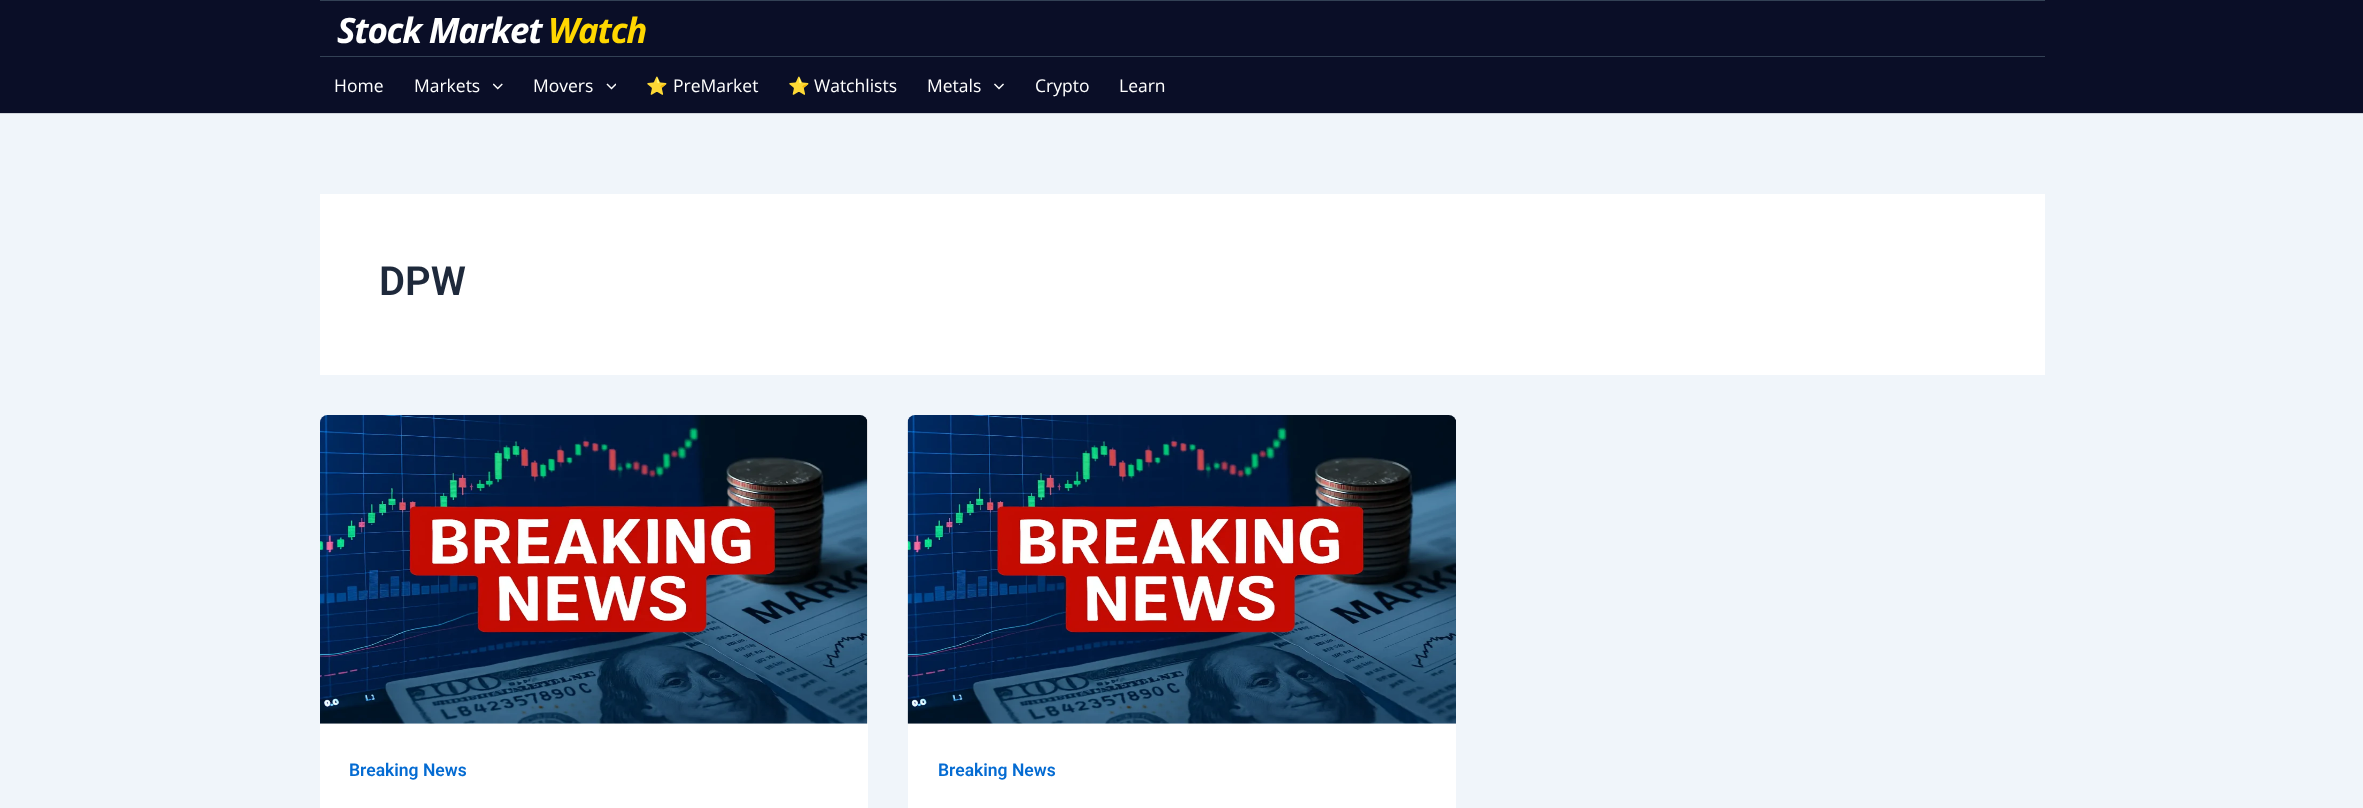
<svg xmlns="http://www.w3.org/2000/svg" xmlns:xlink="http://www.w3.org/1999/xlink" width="2363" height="808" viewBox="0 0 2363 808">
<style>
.cls-1{font:italic bold 35px Open Sans;letter-spacing:-1.25px;fill:#ffffff}
.cls-2{font:italic bold 35px Open Sans;letter-spacing:-1.25px;fill:#ffd700}
.cls-3{font:17.5px Open Sans;fill:#ffffff}
.cls-4{font:17.5px Noto Color Emoji;fill:#ffffff}
.cls-5{font:600 40px Roboto;fill:#1e293b}
.cls-6{font:600 17.5px Roboto;fill:#046bd2}
</style>
<rect width="100%" height="100%" fill="#f0f5fa"/>
<rect fill="#0a0e27" x="0" y="0" width="2363" height="113"/>
<rect fill="#d1d5db" x="0" y="113" width="2363" height="1"/>
<rect fill="#334155" x="320" y="0" width="1725" height="1"/>
<rect fill="#334155" x="320" y="56" width="1725" height="1"/>
<image xlink:href="image0.png" x="493" y="83" width="10" height="7"/>
<image xlink:href="image1.png" x="606" y="83" width="10" height="7"/>
<image xlink:href="image2.png" x="994" y="83" width="10" height="7"/>
<rect fill="#ffffff" x="320" y="194" width="1725" height="181"/>
<rect fill="#ffffff" x="320" y="415" width="548" height="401" rx="8"/>
<image xlink:href="image3.png" x="320" y="415" width="548" height="309"/>
<rect fill="#ffffff" x="908" y="415" width="548" height="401" rx="8"/>
<image xlink:href="image4.png" x="907" y="415" width="549" height="309"/>
<text class="cls-1" x="337" y="43">Stock Market</text>
<text class="cls-2" x="548" y="43">Watch</text>
<text class="cls-3" x="334" y="92">Home</text>
<text class="cls-3" x="414" y="92">Markets</text>
<text class="cls-3" x="533" y="92">Movers</text>
<text class="cls-4" x="646" y="92">⭐</text>
<text class="cls-3" x="673" y="92">PreMarket</text>
<text class="cls-4" x="788" y="92">⭐</text>
<text class="cls-3" x="814" y="92">Watchlists</text>
<text class="cls-3" x="927" y="92">Metals</text>
<text class="cls-3" x="1035" y="92">Crypto</text>
<text class="cls-3" x="1119" y="92">Learn</text>
<text class="cls-5" x="379" y="295">DPW</text>
<text class="cls-6" x="349" y="776">Breaking News</text>
<text class="cls-6" x="938" y="776">Breaking News</text>
</svg>
